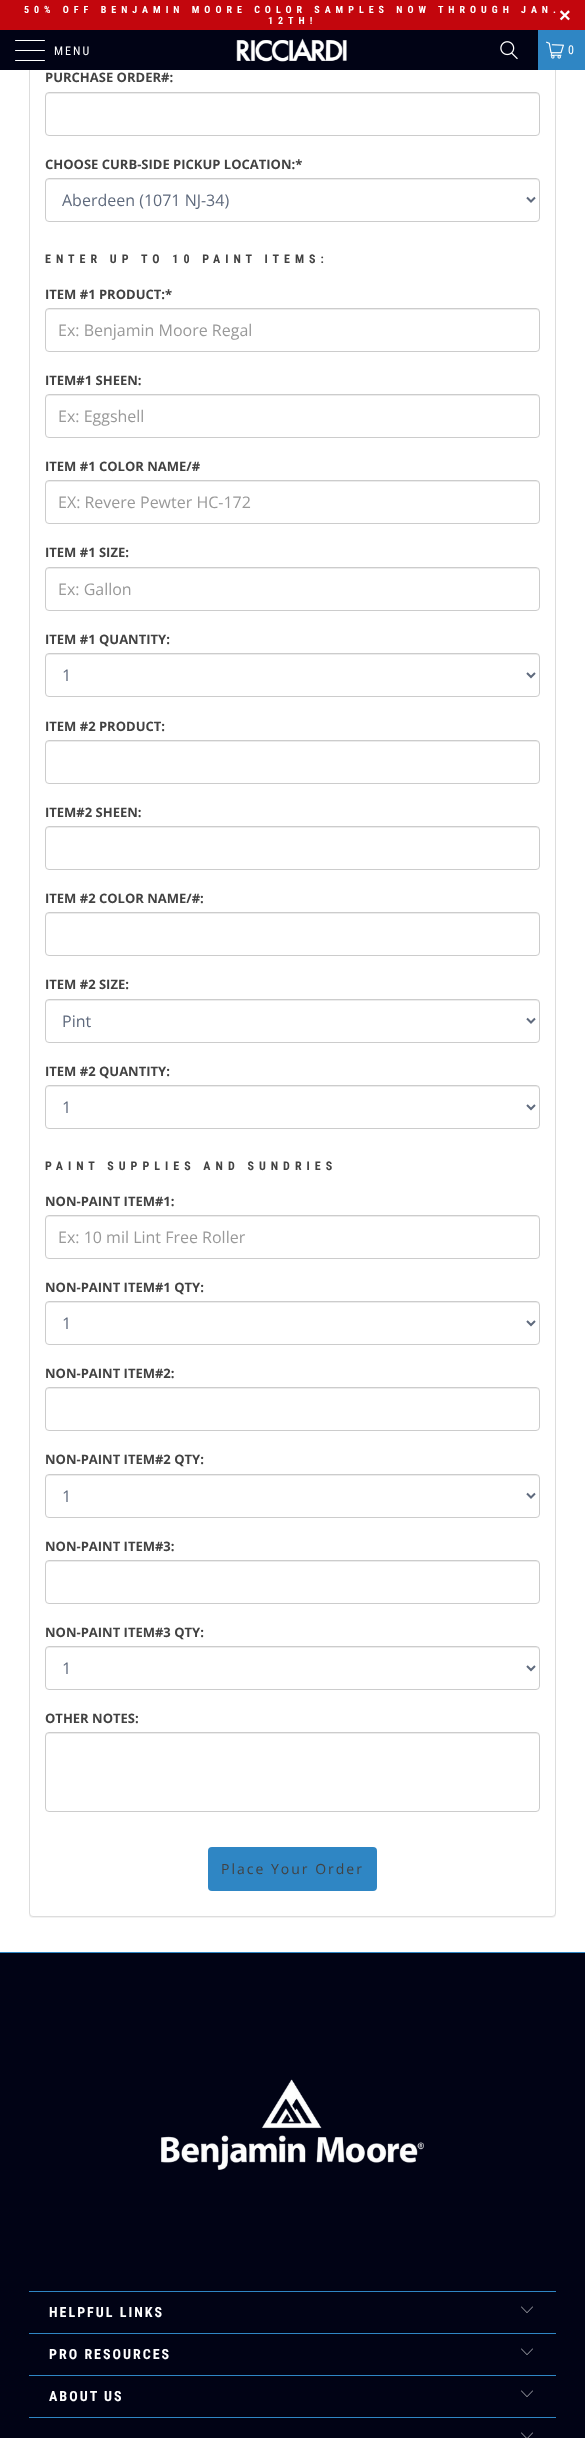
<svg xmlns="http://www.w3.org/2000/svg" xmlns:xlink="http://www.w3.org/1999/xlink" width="585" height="2438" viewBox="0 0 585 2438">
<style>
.cls-1{font:bold 10px Roboto Condensed;letter-spacing:5px;fill:#ffffff}
.cls-2{font:bold 20px Liberation Sans;letter-spacing:5px;fill:#ffffff}
.cls-3{font:12px Roboto Condensed;letter-spacing:2px;fill:#ffffff}
.cls-4{font:12px Roboto Condensed;letter-spacing:1px;fill:#ffffff}
.cls-5{font:bold 13px Open Sans;fill:#424242}
.cls-6{font:16px Open Sans;fill:#5f6a7d}
.cls-7{font:bold 12px Roboto Condensed;letter-spacing:5px;fill:#424242}
.cls-8{font:16px Open Sans;fill:#999999}
.cls-9{font:14px Open Sans;letter-spacing:2px;fill:#424242}
.cls-10{font:bold 14px Roboto Condensed;letter-spacing:2px;fill:#ffffff}
</style>
<rect width="100%" height="100%" fill="#ffffff"/>
<rect fill="#000000" fill-opacity="0.05" filter="blur(0.5px)" x="29" y="-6" width="527" height="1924" rx="4"/>
<rect fill="#ffffff" stroke="#dddddd" x="29.5" y="-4.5" width="526" height="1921" rx="3.5"/>
<rect fill="#c3060d" x="0" y="0" width="585" height="30"/>
<rect fill="#010315" x="0" y="30" width="538" height="40"/>
<rect fill="#ffffff" x="15" y="40" width="30" height="1" rx="0.5"/>
<rect fill="#ffffff" x="15" y="50" width="30" height="1" rx="0.5"/>
<rect fill="#ffffff" x="15" y="60" width="30" height="1" rx="0.5"/>
<image xlink:href="image0.png" x="236" y="38" width="111" height="24"/>
<image xlink:href="image1.png" x="500" y="41" width="18" height="19"/>
<rect fill="#2f86c4" x="538" y="30" width="47" height="40"/>
<image xlink:href="image2.png" x="546" y="41" width="18" height="18"/>
<path fill="#ececec" d="M49 94H536C538 94 539 95 539 97V96C539 94 538 93 536 93H49C47 93 46 94 46 96V97C46 95 47 94 49 94Z"/>
<rect fill="none" stroke="#cccccc" x="45.5" y="92.5" width="494" height="43" rx="3.5"/>
<path fill="#ececec" d="M49 180H536C538 180 539 181 539 183V182C539 180 538 179 536 179H49C47 179 46 180 46 182V183C46 181 47 180 49 180Z"/>
<rect fill="none" stroke="#cccccc" x="45.5" y="178.5" width="494" height="43" rx="3.5"/>
<path fill="none" stroke="#5f6a7d" stroke-width="2" d="M527 197.5L531 201.5L535 197.5"/>
<path fill="#ececec" d="M49 310H536C538 310 539 311 539 313V312C539 310 538 309 536 309H49C47 309 46 310 46 312V313C46 311 47 310 49 310Z"/>
<rect fill="none" stroke="#cccccc" x="45.5" y="308.5" width="494" height="43" rx="3.5"/>
<path fill="#ececec" d="M49 396H536C538 396 539 397 539 399V398C539 396 538 395 536 395H49C47 395 46 396 46 398V399C46 397 47 396 49 396Z"/>
<rect fill="none" stroke="#cccccc" x="45.5" y="394.5" width="494" height="43" rx="3.5"/>
<path fill="#ececec" d="M49 482H536C538 482 539 483 539 485V484C539 482 538 481 536 481H49C47 481 46 482 46 484V485C46 483 47 482 49 482Z"/>
<rect fill="none" stroke="#cccccc" x="45.5" y="480.5" width="494" height="43" rx="3.5"/>
<path fill="#ececec" d="M49 569H536C538 569 539 570 539 572V571C539 569 538 568 536 568H49C47 568 46 569 46 571V572C46 570 47 569 49 569Z"/>
<rect fill="none" stroke="#cccccc" x="45.5" y="567.5" width="494" height="43" rx="3.5"/>
<path fill="#ececec" d="M49 655H536C538 655 539 656 539 658V657C539 655 538 654 536 654H49C47 654 46 655 46 657V658C46 656 47 655 49 655Z"/>
<rect fill="none" stroke="#cccccc" x="45.5" y="653.5" width="494" height="43" rx="3.5"/>
<path fill="none" stroke="#5f6a7d" stroke-width="2" d="M527 673L531 677L535 673"/>
<path fill="#ececec" d="M49 742H536C538 742 539 743 539 745V744C539 742 538 741 536 741H49C47 741 46 742 46 744V745C46 743 47 742 49 742Z"/>
<rect fill="none" stroke="#cccccc" x="45.5" y="740.5" width="494" height="43" rx="3.5"/>
<path fill="#ececec" d="M49 828H536C538 828 539 829 539 831V830C539 828 538 827 536 827H49C47 827 46 828 46 830V831C46 829 47 828 49 828Z"/>
<rect fill="none" stroke="#cccccc" x="45.5" y="826.5" width="494" height="43" rx="3.5"/>
<path fill="#ececec" d="M49 914H536C538 914 539 915 539 917V916C539 914 538 913 536 913H49C47 913 46 914 46 916V917C46 915 47 914 49 914Z"/>
<rect fill="none" stroke="#cccccc" x="45.5" y="912.5" width="494" height="43" rx="3.5"/>
<path fill="#ececec" d="M49 1001H536C538 1001 539 1002 539 1004V1003C539 1001 538 1000 536 1000H49C47 1000 46 1001 46 1003V1004C46 1002 47 1001 49 1001Z"/>
<rect fill="none" stroke="#cccccc" x="45.5" y="999.5" width="494" height="43" rx="3.5"/>
<path fill="none" stroke="#5f6a7d" stroke-width="2" d="M527 1018.5L531 1022.5L535 1018.5"/>
<path fill="#ececec" d="M49 1087H536C538 1087 539 1088 539 1090V1089C539 1087 538 1086 536 1086H49C47 1086 46 1087 46 1089V1090C46 1088 47 1087 49 1087Z"/>
<rect fill="none" stroke="#cccccc" x="45.5" y="1085.5" width="494" height="43" rx="3.5"/>
<path fill="none" stroke="#5f6a7d" stroke-width="2" d="M527 1105L531 1109L535 1105"/>
<path fill="#ececec" d="M49 1217H536C538 1217 539 1218 539 1220V1219C539 1217 538 1216 536 1216H49C47 1216 46 1217 46 1219V1220C46 1218 47 1217 49 1217Z"/>
<rect fill="none" stroke="#cccccc" x="45.5" y="1215.5" width="494" height="43" rx="3.5"/>
<path fill="#ececec" d="M49 1303H536C538 1303 539 1304 539 1306V1305C539 1303 538 1302 536 1302H49C47 1302 46 1303 46 1305V1306C46 1304 47 1303 49 1303Z"/>
<rect fill="none" stroke="#cccccc" x="45.5" y="1301.5" width="494" height="43" rx="3.5"/>
<path fill="none" stroke="#5f6a7d" stroke-width="2" d="M527 1321L531 1325L535 1321"/>
<path fill="#ececec" d="M49 1389H536C538 1389 539 1390 539 1392V1391C539 1389 538 1388 536 1388H49C47 1388 46 1389 46 1391V1392C46 1390 47 1389 49 1389Z"/>
<rect fill="none" stroke="#cccccc" x="45.5" y="1387.5" width="494" height="43" rx="3.5"/>
<path fill="#ececec" d="M49 1476H536C538 1476 539 1477 539 1479V1478C539 1476 538 1475 536 1475H49C47 1475 46 1476 46 1478V1479C46 1477 47 1476 49 1476Z"/>
<rect fill="none" stroke="#cccccc" x="45.5" y="1474.5" width="494" height="43" rx="3.5"/>
<path fill="none" stroke="#5f6a7d" stroke-width="2" d="M527 1493.5L531 1497.5L535 1493.5"/>
<path fill="#ececec" d="M49 1562H536C538 1562 539 1563 539 1565V1564C539 1562 538 1561 536 1561H49C47 1561 46 1562 46 1564V1565C46 1563 47 1562 49 1562Z"/>
<rect fill="none" stroke="#cccccc" x="45.5" y="1560.5" width="494" height="43" rx="3.5"/>
<path fill="#ececec" d="M49 1648H536C538 1648 539 1649 539 1651V1650C539 1648 538 1647 536 1647H49C47 1647 46 1648 46 1650V1651C46 1649 47 1648 49 1648Z"/>
<rect fill="none" stroke="#cccccc" x="45.5" y="1646.5" width="494" height="43" rx="3.5"/>
<path fill="none" stroke="#5f6a7d" stroke-width="2" d="M527 1666L531 1670L535 1666"/>
<path fill="#ececec" d="M49 1734H536C538 1734 539 1735 539 1737V1736C539 1734 538 1733 536 1733H49C47 1733 46 1734 46 1736V1737C46 1735 47 1734 49 1734Z"/>
<rect fill="none" stroke="#cccccc" x="45.5" y="1732.5" width="494" height="79" rx="3.5"/>
<rect fill="#2f86c4" x="208" y="1847" width="169" height="44" rx="4"/>
<rect fill="#010315" x="0" y="1953" width="585" height="485"/>
<rect fill="#2f86c4" x="0" y="1952" width="585" height="1"/>
<image xlink:href="image3.png" x="161" y="2079" width="263" height="91"/>
<rect fill="#2f86c4" x="29" y="2291" width="527" height="1"/>
<image xlink:href="image4.png" x="521" y="2306" width="12" height="7"/>
<rect fill="#2f86c4" x="29" y="2333" width="527" height="1"/>
<image xlink:href="image4.png" x="521" y="2348" width="12" height="7"/>
<rect fill="#2f86c4" x="29" y="2375" width="527" height="1"/>
<image xlink:href="image4.png" x="521" y="2390" width="12" height="7"/>
<rect fill="#2f86c4" x="29" y="2417" width="527" height="1"/>
<image xlink:href="image5.png" x="521" y="2432" width="12" height="6"/>
<text class="cls-1" x="24" y="13">50% OFF BENJAMIN MOORE COLOR SAMPLES NOW THROUGH JAN.</text>
<text class="cls-1" x="268" y="24">12TH!</text>
<text class="cls-2" x="559" y="22">×</text>
<text class="cls-3" x="54" y="55">MENU</text>
<text class="cls-4" x="568" y="54">0</text>
<text class="cls-5" x="45" y="82">PURCHASE ORDER#:</text>
<text class="cls-5" x="45" y="169">CHOOSE CURB-SIDE PICKUP LOCATION:*</text>
<text class="cls-6" x="62" y="206">Aberdeen (1071 NJ-34)</text>
<text class="cls-7" x="45" y="263">ENTER UP TO 10 PAINT ITEMS:</text>
<text class="cls-5" x="45" y="299">ITEM #1 PRODUCT:*</text>
<text class="cls-8" x="58" y="336">Ex: Benjamin Moore Regal</text>
<text class="cls-5" x="45" y="385">ITEM#1 SHEEN:</text>
<text class="cls-8" x="58" y="422">Ex: Eggshell</text>
<text class="cls-5" x="45" y="471">ITEM #1 COLOR NAME/#</text>
<text class="cls-8" x="58" y="508">EX: Revere Pewter HC-172</text>
<text class="cls-5" x="45" y="557">ITEM #1 SIZE:</text>
<text class="cls-8" x="58" y="595">Ex: Gallon</text>
<text class="cls-5" x="45" y="644">ITEM #1 QUANTITY:</text>
<text class="cls-6" x="62" y="681">1</text>
<text class="cls-5" x="45" y="731">ITEM #2 PRODUCT:</text>
<text class="cls-5" x="45" y="817">ITEM#2 SHEEN:</text>
<text class="cls-5" x="45" y="903">ITEM #2 COLOR NAME/#:</text>
<text class="cls-5" x="45" y="989">ITEM #2 SIZE:</text>
<text class="cls-6" x="62" y="1027">Pint</text>
<text class="cls-5" x="45" y="1076">ITEM #2 QUANTITY:</text>
<text class="cls-6" x="62" y="1113">1</text>
<text class="cls-7" x="45" y="1170">PAINT SUPPLIES AND SUNDRIES</text>
<text class="cls-5" x="45" y="1206">NON-PAINT ITEM#1:</text>
<text class="cls-8" x="58" y="1243">Ex: 10 mil Lint Free Roller</text>
<text class="cls-5" x="45" y="1292">NON-PAINT ITEM#1 QTY:</text>
<text class="cls-6" x="62" y="1329">1</text>
<text class="cls-5" x="45" y="1378">NON-PAINT ITEM#2:</text>
<text class="cls-5" x="45" y="1464">NON-PAINT ITEM#2 QTY:</text>
<text class="cls-6" x="62" y="1502">1</text>
<text class="cls-5" x="45" y="1551">NON-PAINT ITEM#3:</text>
<text class="cls-5" x="45" y="1637">NON-PAINT ITEM#3 QTY:</text>
<text class="cls-6" x="62" y="1674">1</text>
<text class="cls-5" x="45" y="1723">OTHER NOTES:</text>
<text class="cls-9" x="221" y="1874">Place Your Order</text>
<text class="cls-10" x="49" y="2317">HELPFUL LINKS</text>
<text class="cls-10" x="49" y="2359">PRO RESOURCES</text>
<text class="cls-10" x="49" y="2401">ABOUT US</text>
</svg>
